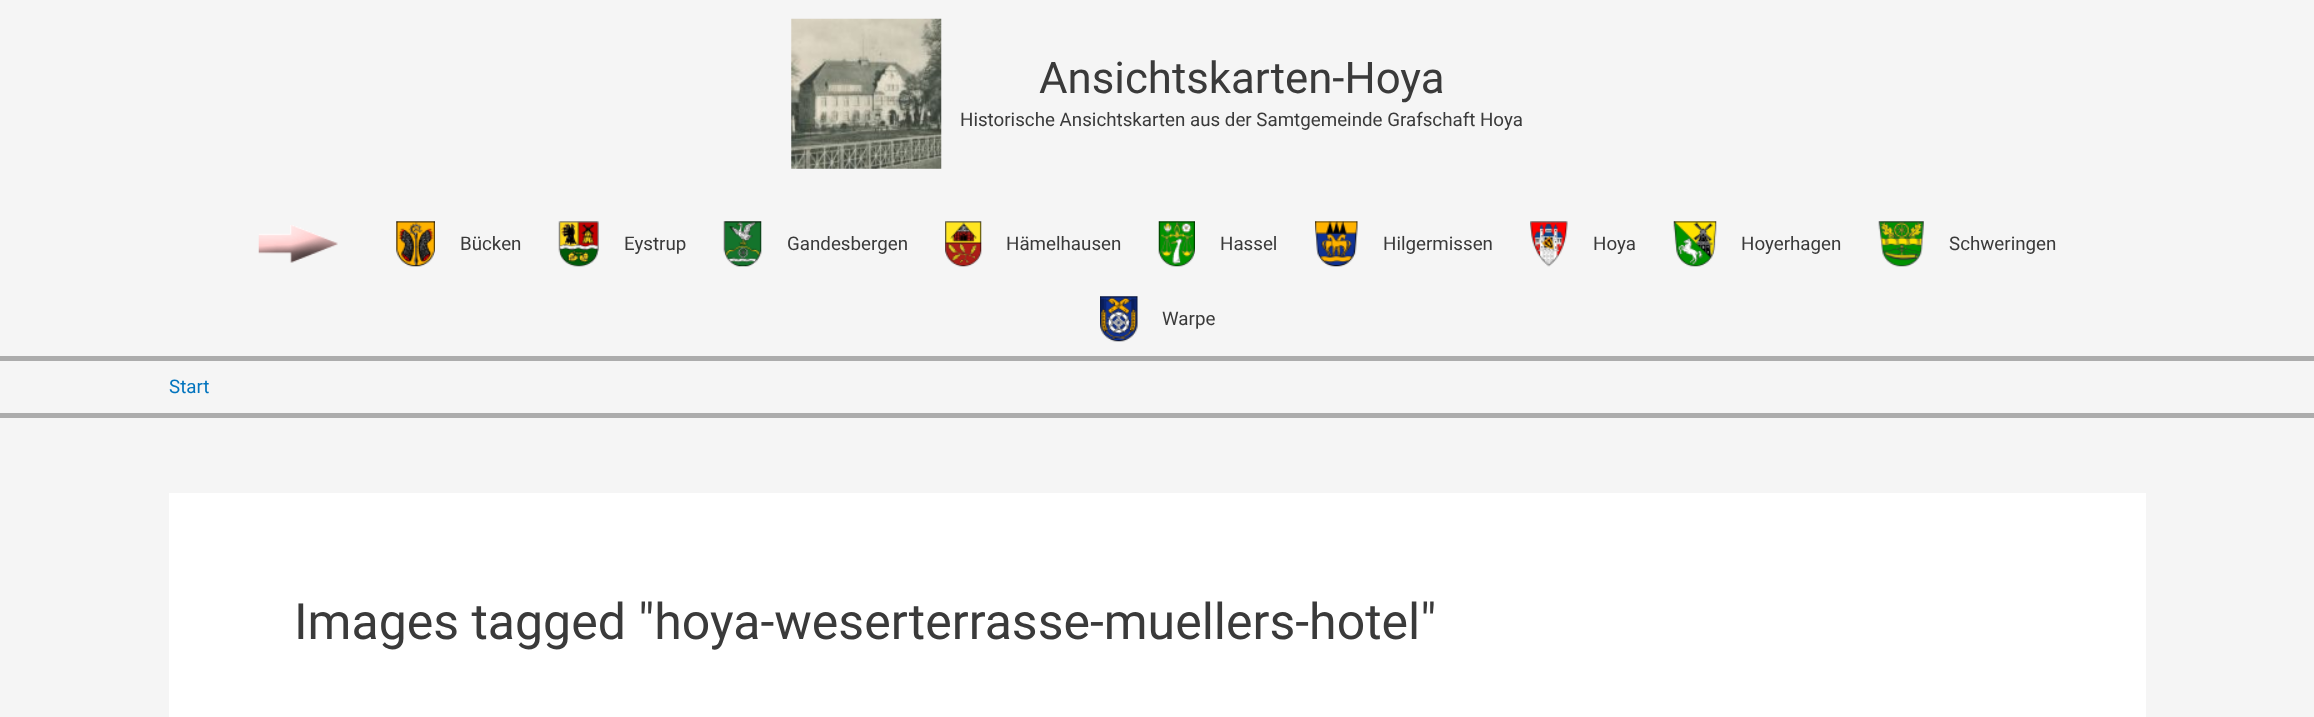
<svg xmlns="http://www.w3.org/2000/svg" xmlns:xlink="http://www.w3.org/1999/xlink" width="2314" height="717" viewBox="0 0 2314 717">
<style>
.cls-1{font:43.75px Roboto;fill:#3a3a3a}
.cls-2{font:18.75px Roboto;fill:#3a3a3a}
.cls-3{font:18.75px Roboto;fill:#0274be}
.cls-4{font:50px Roboto;fill:#3a3a3a}
</style>
<rect width="100%" height="100%" fill="#f5f5f5"/>
<rect fill="#acacac" x="0" y="356" width="2314" height="5"/>
<image xlink:href="image0.png" x="791" y="18" width="151" height="151"/>
<image xlink:href="image1.png" x="258" y="225" width="80" height="38"/>
<image xlink:href="image2.png" x="396" y="221" width="39" height="46"/>
<image xlink:href="image3.png" x="558" y="221" width="41" height="46"/>
<image xlink:href="image4.png" x="723" y="221" width="39" height="46"/>
<image xlink:href="image5.png" x="945" y="221" width="37" height="46"/>
<image xlink:href="image6.png" x="1158" y="221" width="37" height="46"/>
<image xlink:href="image7.png" x="1315" y="221" width="43" height="46"/>
<image xlink:href="image8.png" x="1530" y="221" width="38" height="46"/>
<image xlink:href="image9.png" x="1673" y="221" width="44" height="46"/>
<image xlink:href="image10.png" x="1878" y="221" width="46" height="46"/>
<image xlink:href="image11.png" x="1100" y="296" width="38" height="46"/>
<rect fill="#acacac" x="0" y="413" width="2314" height="5"/>
<rect fill="#ffffff" x="169" y="493" width="1977" height="224"/>
<text class="cls-1" x="1039" y="93">Ansichtskarten-Hoya</text>
<text class="cls-2" x="960" y="126">Historische Ansichtskarten aus der Samtgemeinde Grafschaft Hoya</text>
<text class="cls-2" x="460" y="250">Bücken</text>
<text class="cls-2" x="624" y="250">Eystrup</text>
<text class="cls-2" x="787" y="250">Gandesbergen</text>
<text class="cls-2" x="1006" y="250">Hämelhausen</text>
<text class="cls-2" x="1220" y="250">Hassel</text>
<text class="cls-2" x="1383" y="250">Hilgermissen</text>
<text class="cls-2" x="1593" y="250">Hoya</text>
<text class="cls-2" x="1741" y="250">Hoyerhagen</text>
<text class="cls-2" x="1949" y="250">Schweringen</text>
<text class="cls-2" x="1162" y="325">Warpe</text>
<text class="cls-3" x="169" y="393">Start</text>
<text class="cls-4" x="294" y="639">Images tagged "hoya-weserterrasse-muellers-hotel"</text>
</svg>
